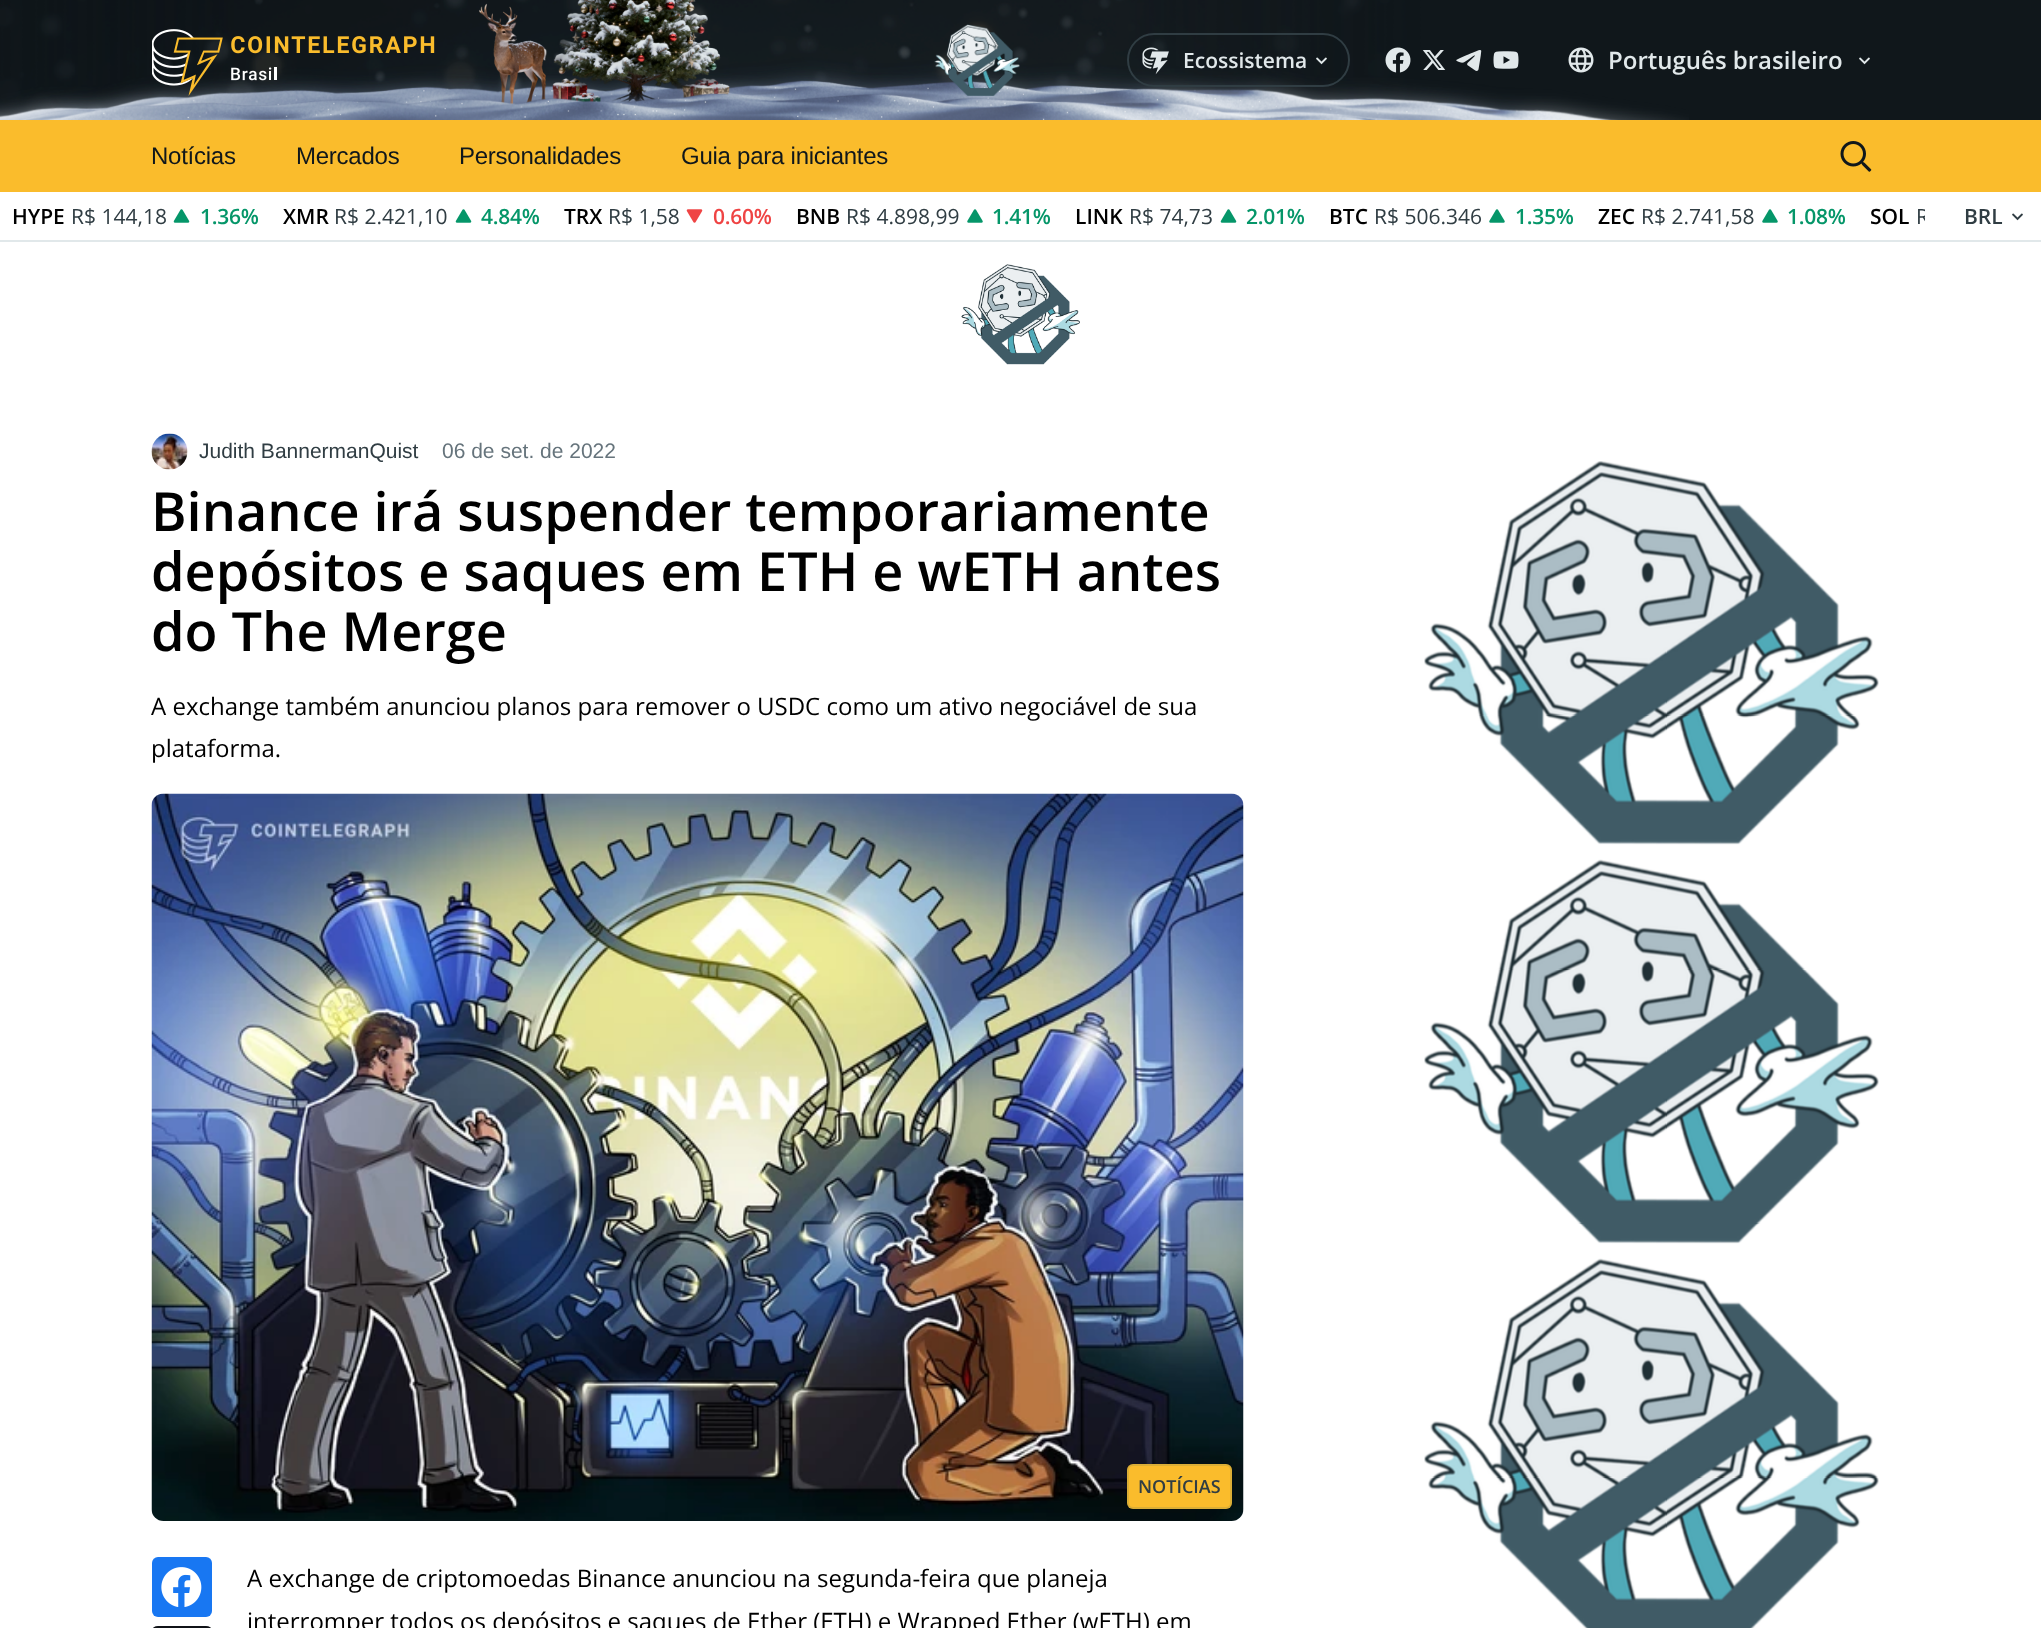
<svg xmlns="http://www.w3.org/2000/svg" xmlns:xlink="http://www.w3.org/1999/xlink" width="2041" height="1628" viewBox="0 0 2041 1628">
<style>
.cls-1{font:600 21px Open Sans;fill:#e1e8ea}
.cls-2{font:600 24px Open Sans;fill:#e1e8ea}
.cls-3{font:24px Liberation Sans;letter-spacing:-0.25px;fill:#10171b}
.cls-4{font:600 21px Open Sans;fill:#000000}
.cls-5{font:21px Open Sans;fill:#303d43}
.cls-6{font:600 21px Open Sans;letter-spacing:-0.25px;fill:#059669}
.cls-7{font:600 21px Open Sans;letter-spacing:-0.25px;fill:#ef4444}
.cls-8{font:600 21px Open Sans;fill:#303d43}
.cls-9{font:21px Liberation Sans;fill:#303d43}
.cls-10{font:21px Liberation Sans;fill:#66747c}
.cls-11{font:600 54px Open Sans;fill:#000000}
.cls-12{font:24px Open Sans;fill:#000000}
.cls-13{font:600 18px Open Sans;fill:#303d43}
</style>
<defs>
<clipPath id="clip1"><rect x="0" y="192" width="1925" height="48"/></clipPath>
</defs>
<rect width="100%" height="100%" fill="#ffffff"/>
<rect fill="#10171b" x="0" y="0" width="2041" height="120"/>
<image xlink:href="image0.png" x="0" y="0" width="1689" height="120"/>
<image xlink:href="image1.png" x="152" y="29" width="283" height="67"/>
<image xlink:href="image2.png" x="934" y="24" width="86" height="72"/>
<rect fill="none" stroke="#303d43" stroke-width="2" x="1128" y="34" width="221" height="52" rx="26"/>
<image xlink:href="image3.png" x="1142" y="47" width="27" height="28"/>
<image xlink:href="image4.png" x="1316" y="57" width="11" height="8"/>
<image xlink:href="image5.png" x="1385" y="47" width="26" height="26"/>
<image xlink:href="image6.png" x="1422" y="50" width="24" height="20"/>
<image xlink:href="image7.png" x="1456" y="50" width="26" height="21"/>
<image xlink:href="image8.png" x="1493" y="51" width="26" height="18"/>
<image xlink:href="image9.png" x="1568" y="47" width="26" height="26"/>
<image xlink:href="image10.png" x="1859" y="57" width="11" height="8"/>
<rect fill="#fabc2c" x="0" y="120" width="2041" height="72"/>
<image xlink:href="image11.png" x="1840" y="141" width="32" height="31"/>
<rect fill="#e1e8ea" x="0" y="240" width="2041" height="2"/>
<image xlink:href="image12.png" x="173" y="209" width="17" height="14"/>
<image xlink:href="image12.png" x="455" y="209" width="17" height="14"/>
<image xlink:href="image13.png" x="686" y="209" width="17" height="14"/>
<image xlink:href="image14.png" x="967" y="209" width="16" height="14"/>
<image xlink:href="image12.png" x="1220" y="209" width="17" height="14"/>
<image xlink:href="image14.png" x="1489" y="209" width="16" height="14"/>
<image xlink:href="image14.png" x="1762" y="209" width="16" height="14"/>
<image xlink:href="image15.png" x="2012" y="213" width="11" height="8"/>
<image xlink:href="image16.png" x="961" y="264" width="119" height="101"/>
<image xlink:href="image17.png" x="151" y="433" width="37" height="37"/>
<image xlink:href="image18.png" x="151" y="793" width="1093" height="728"/>
<rect fill="#fabc2c" x="1127" y="1464" width="105" height="45" rx="6"/>
<rect fill="none" stroke="#31616f" stroke-opacity="0.15" stroke-width="2" x="1128" y="1465" width="103" height="43" rx="5"/>
<rect fill="#1877f2" x="152" y="1557" width="60" height="60" rx="6"/>
<image xlink:href="image19.png" x="161" y="1567" width="41" height="40"/>
<rect fill="#101318" x="152" y="1626" width="60" height="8" rx="6"/>
<image xlink:href="image20.png" x="1424" y="461" width="455" height="384"/>
<image xlink:href="image21.png" x="1424" y="859" width="455" height="385"/>
<image xlink:href="image22.png" x="1424" y="1258" width="455" height="370"/>
<text class="cls-1" x="1183" y="68">Ecossistema</text>
<text class="cls-2" x="1608" y="69">Português brasileiro</text>
<text class="cls-3" x="151" y="164">Notícias</text>
<text class="cls-3" x="296" y="164">Mercados</text>
<text class="cls-3" x="459" y="164">Personalidades</text>
<text class="cls-3" x="681" y="164">Guia para iniciantes</text>
<text class="cls-4" x="12" y="224">HYPE</text>
<text class="cls-5" x="71" y="224">R$ 144,18</text>
<text class="cls-6" x="200" y="224">1.36%</text>
<text class="cls-4" x="283" y="224">XMR</text>
<text class="cls-5" x="334" y="224">R$ 2.421,10</text>
<text class="cls-6" x="481" y="224">4.84%</text>
<text class="cls-4" x="564" y="224">TRX</text>
<text class="cls-5" x="608" y="224">R$ 1,58</text>
<text class="cls-7" x="713" y="224">0.60%</text>
<text class="cls-4" x="796" y="224">BNB</text>
<text class="cls-5" x="846" y="224">R$ 4.898,99</text>
<text class="cls-6" x="992" y="224">1.41%</text>
<text class="cls-4" x="1075" y="224">LINK</text>
<text class="cls-5" x="1129" y="224">R$ 74,73</text>
<text class="cls-6" x="1246" y="224">2.01%</text>
<text class="cls-4" x="1329" y="224">BTC</text>
<text class="cls-5" x="1374" y="224">R$ 506.346</text>
<text class="cls-6" x="1515" y="224">1.35%</text>
<text class="cls-4" x="1598" y="224">ZEC</text>
<text class="cls-5" x="1641" y="224">R$ 2.741,58</text>
<text class="cls-6" x="1787" y="224">1.08%</text>
<text class="cls-4" x="1870" y="224">SOL</text>
<g clip-path="url(#clip1)">
<text class="cls-5" x="1916" y="224">R</text>
</g>
<text class="cls-8" x="1964" y="224">BRL</text>
<text class="cls-9" x="199" y="458">Judith BannermanQuist</text>
<text class="cls-10" x="442" y="458">06 de set. de 2022</text>
<text class="cls-11"><tspan x="151" y="531">Binance irá suspender temporariamente</tspan><tspan x="151" y="591">depósitos e saques em ETH e wETH antes</tspan><tspan x="151" y="651">do The Merge</tspan></text>
<text class="cls-12"><tspan x="151" y="715">A exchange também anunciou planos para remover o USDC como um ativo negociável de sua</tspan><tspan x="151" y="757">plataforma.</tspan></text>
<text class="cls-13" x="1138" y="1493">NOTÍCIAS</text>
<text class="cls-12"><tspan x="247" y="1587">A exchange de criptomoedas Binance anunciou na segunda-feira que planeja</tspan><tspan x="247" y="1630">interromper todos os depósitos e saques de Ether (ETH) e Wrapped Ether (wETH) em</tspan></text>
</svg>
